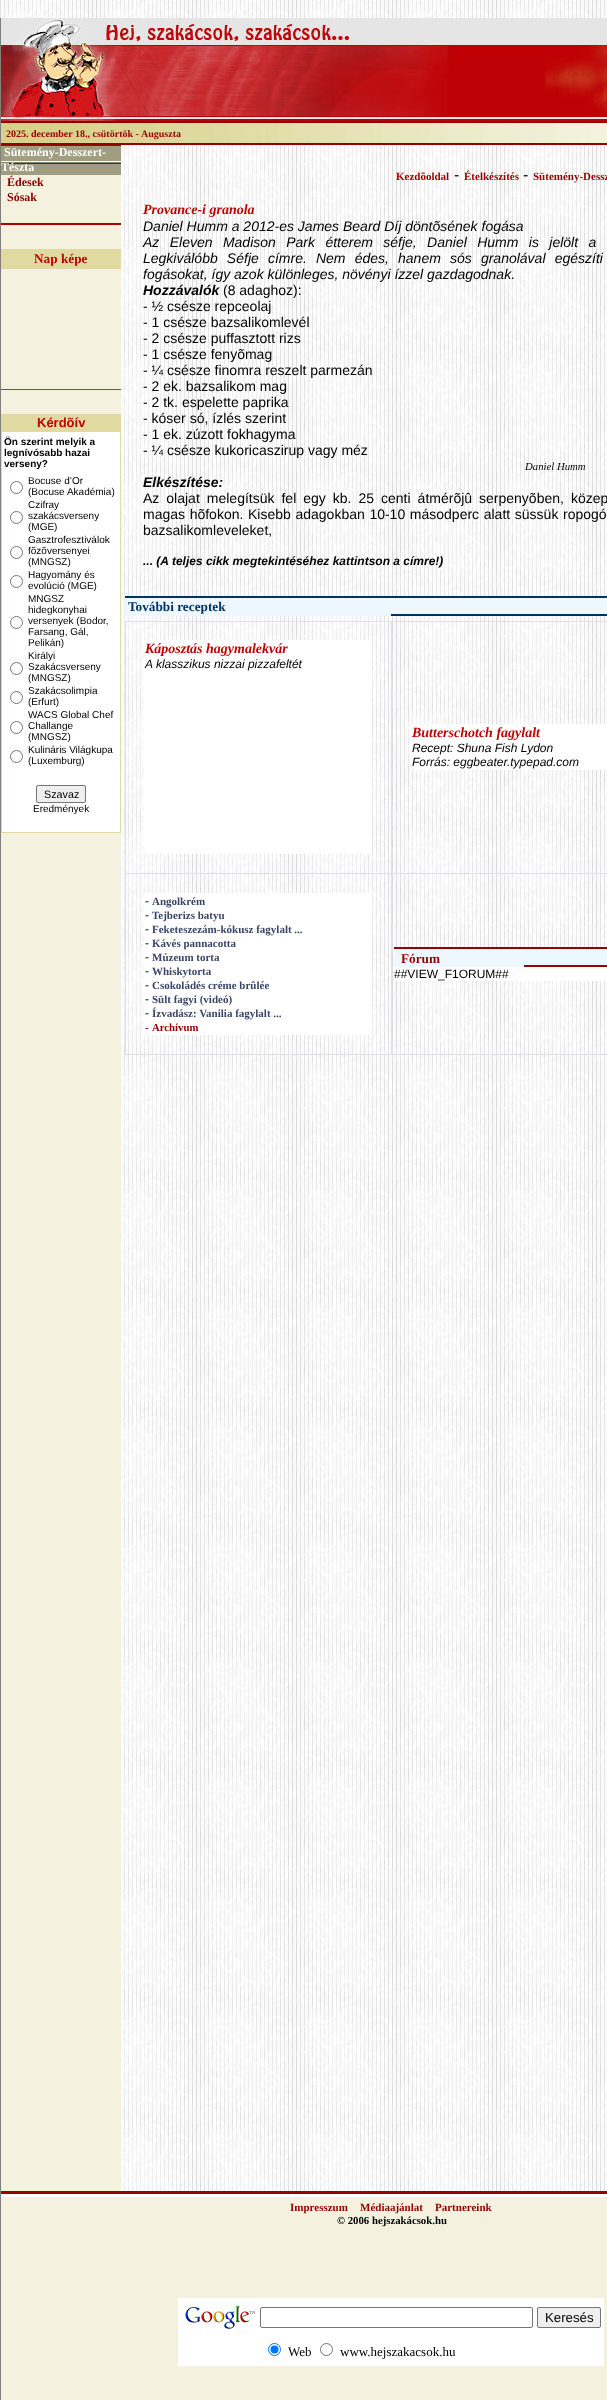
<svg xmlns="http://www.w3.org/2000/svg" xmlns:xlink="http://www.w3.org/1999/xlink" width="607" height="2400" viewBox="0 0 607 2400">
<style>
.cls-1{font:bold 10px Liberation Serif;fill:#970000}
.cls-2{font:bold 12px Liberation Serif;fill:#ffffff}
.cls-3{font:bold 12px Liberation Serif;fill:#860000}
.cls-4{font:bold 13.25px Liberation Serif;fill:#c10000}
.cls-5{font:bold 13px Liberation Sans;fill:#c10000}
.cls-6{font:bold 10px Liberation Sans;fill:#000000}
.cls-7{font:10px Liberation Sans;fill:#000000}
.cls-8{font:10.75px Liberation Sans;fill:#000000}
.cls-9{font:bold 11px Liberation Serif;fill:#970000}
.cls-10{font:16px Liberation Sans;fill:#000000}
.cls-11{font:italic bold 14px Liberation Serif;fill:#c10000}
.cls-12{font:italic 14px Liberation Sans;fill:#000000}
.cls-13{font:italic 10.75px Liberation Serif;fill:#000000}
.cls-14{font:italic bold 14px Liberation Sans;fill:#000000}
.cls-15{font:14px Liberation Sans;fill:#000000}
.cls-16{font:italic bold 12px Liberation Sans;fill:#000000}
.cls-17{font:bold 13.25px Liberation Serif;fill:#003366}
.cls-18{font:italic 12px Liberation Sans;fill:#000000}
.cls-19{font:12px Liberation Sans;fill:#000000}
.cls-20{font:bold 11px Liberation Serif;fill:#3a4669}
.cls-21{font:bold 10.75px Liberation Serif;fill:#970000}
.cls-22{font:bold 13.25px Liberation Serif;fill:#970000}
.cls-23{font:bold 10.75px Liberation Serif;fill:#000000}
.cls-24{font:13.25px Liberation Sans;fill:#000000}
.cls-25{font:13px Liberation Serif;fill:#000000}
</style>
<rect width="100%" height="100%" fill="#ffffff"/>
<image xlink:href="image0.png" x="0" y="0" width="607" height="2191"/>
<rect fill="#808080" x="0" y="18" width="1" height="2382"/>
<image xlink:href="image1.png" x="1" y="18" width="606" height="103"/>
<image xlink:href="image2.png" x="1" y="123" width="606" height="20"/>
<rect fill="#970000" x="1" y="121" width="606" height="2"/>
<rect fill="#970000" x="1" y="143" width="606" height="2"/>
<rect fill="#f4f2de" x="1" y="175" width="120" height="2016"/>
<image xlink:href="image3.png" x="1" y="145" width="120" height="30"/>
<rect fill="#b30000" x="1" y="223" width="120" height="2"/>
<rect fill="#e0daa1" x="1" y="249" width="120" height="20"/>
<rect fill="#336699" x="1" y="389" width="120" height="1"/>
<rect fill="#e0daa1" x="1" y="414" width="120" height="419"/>
<rect fill="#ffffff" x="2" y="432" width="118" height="400"/>
<circle fill="none" stroke="#767676" cx="16.5" cy="487.5" r="6"/>
<circle fill="none" stroke="#767676" cx="16.5" cy="517.5" r="6"/>
<circle fill="none" stroke="#767676" cx="16.5" cy="552.5" r="6"/>
<circle fill="none" stroke="#767676" cx="16.5" cy="581.5" r="6"/>
<circle fill="none" stroke="#767676" cx="16.5" cy="622.5" r="6"/>
<circle fill="none" stroke="#767676" cx="16.5" cy="668.5" r="6"/>
<circle fill="none" stroke="#767676" cx="16.5" cy="697.5" r="6"/>
<circle fill="none" stroke="#767676" cx="16.5" cy="727.5" r="6"/>
<circle fill="none" stroke="#767676" cx="16.5" cy="756.5" r="6"/>
<rect fill="#efefef" stroke="#767676" x="36.5" y="785.5" width="49" height="17" rx="1.5"/>
<rect fill="#003366" x="125" y="596" width="482" height="2"/>
<rect fill="#edf7ff" x="125" y="598" width="266" height="18"/>
<rect fill="#edf7ff" x="391" y="598" width="216" height="16"/>
<rect fill="#003366" x="391" y="614" width="216" height="2"/>
<rect fill="#dee2e7" x="391" y="621" width="216" height="1"/>
<rect fill="#dee2e7" x="391" y="873" width="216" height="1"/>
<rect fill="#dee2e7" x="391" y="1054" width="216" height="1"/>
<rect fill="#dee2e7" x="391" y="873" width="1" height="182"/>
<rect fill="#dee2e7" x="125" y="873" width="267" height="1"/>
<rect fill="#dee2e7" x="391" y="621" width="1" height="253"/>
<rect fill="#dee2e7" x="125" y="621" width="267" height="1"/>
<rect fill="#dee2e7" x="125" y="1054" width="267" height="1"/>
<rect fill="#dee2e7" x="125" y="873" width="1" height="182"/>
<rect fill="#dee2e7" x="125" y="621" width="1" height="253"/>
<rect fill="#ffffff" x="144" y="640" width="228" height="214"/>
<rect fill="#ffffff" x="411" y="724" width="196" height="46"/>
<rect fill="#ffffff" x="144" y="893" width="228" height="142"/>
<rect fill="#970000" x="394" y="947" width="213" height="2"/>
<rect fill="#edf7ff" x="394" y="949" width="130" height="18"/>
<rect fill="#edf7ff" x="524" y="949" width="83" height="16"/>
<rect fill="#970000" x="524" y="965" width="83" height="2"/>
<rect fill="#ffffff" x="394" y="967" width="213" height="14"/>
<rect fill="#990000" x="1" y="2191" width="606" height="3"/>
<rect fill="#f4f2de" x="1" y="2197" width="606" height="203"/>
<rect fill="#ffffff" x="178" y="2298" width="426" height="68"/>
<image xlink:href="image4.png" x="185" y="2306" width="70" height="23"/>
<rect fill="none" stroke="#767676" x="260.5" y="2307.5" width="272" height="20" rx="1.5"/>
<rect fill="#efefef" stroke="#767676" x="537.5" y="2307.5" width="63" height="20" rx="1.5"/>
<circle fill="none" stroke="#0075ff" cx="274.5" cy="2349.5" r="6"/>
<circle fill="#0075ff" cx="274.5" cy="2349.5" r="4"/>
<circle fill="none" stroke="#767676" cx="326.5" cy="2349.5" r="6"/>
<text class="cls-1" x="6" y="137">2025. december 18., csütörtök -</text>
<text class="cls-1" x="141" y="137">Auguszta</text>
<text class="cls-2" x="4" y="156">Sütemény-Desszert-</text>
<text class="cls-2" x="1" y="171">Tészta</text>
<text class="cls-3"><tspan x="7" y="186">Édesek</tspan><tspan x="7" y="201">Sósak</tspan></text>
<text class="cls-4" x="34" y="263">Nap képe</text>
<text class="cls-5" x="37" y="427">Kérdõív</text>
<text class="cls-6"><tspan x="4" y="445">Ön szerint melyik a</tspan><tspan x="4" y="456">legnívósabb hazai</tspan><tspan x="4" y="467">verseny?</tspan></text>
<text class="cls-7"><tspan x="28" y="484">Bocuse d’Or</tspan><tspan x="28" y="495">(Bocuse Akadémia)</tspan><tspan x="28" y="508">Czifray</tspan><tspan x="28" y="519">szakácsverseny</tspan><tspan x="28" y="530">(MGE)</tspan><tspan x="28" y="543">Gasztrofesztiválok</tspan><tspan x="28" y="554">fõzõversenyei</tspan><tspan x="28" y="565">(MNGSZ)</tspan><tspan x="28" y="578">Hagyomány és</tspan><tspan x="28" y="589">evolúció (MGE)</tspan><tspan x="28" y="602">MNGSZ</tspan><tspan x="28" y="613">hidegkonyhai</tspan><tspan x="28" y="624">versenyek (Bodor,</tspan><tspan x="28" y="635">Farsang, Gál,</tspan><tspan x="28" y="646">Pelikán)</tspan><tspan x="28" y="659">Királyi</tspan><tspan x="28" y="670">Szakácsverseny</tspan><tspan x="28" y="681">(MNGSZ)</tspan><tspan x="28" y="694">Szakácsolimpia</tspan><tspan x="28" y="705">(Erfurt)</tspan><tspan x="28" y="718">WACS Global Chef</tspan><tspan x="28" y="729">Challange</tspan><tspan x="28" y="740">(MNGSZ)</tspan><tspan x="28" y="753">Kulináris Világkupa</tspan><tspan x="28" y="764">(Luxemburg)</tspan></text>
<text class="cls-8" x="44" y="798">Szavaz</text>
<text class="cls-7" x="33" y="812">Eredmények</text>
<text class="cls-9" x="396" y="180">Kezdõoldal</text>
<text class="cls-10" x="454" y="180">-</text>
<text class="cls-9" x="464" y="180">Ételkészítés</text>
<text class="cls-10" x="523" y="180">-</text>
<text class="cls-9" x="533" y="180">Sütemény-Dessz</text>
<text class="cls-11" x="143" y="214">Provance-i granola</text>
<text class="cls-12"><tspan x="143" y="231">Daniel Humm a 2012-es James Beard Díj döntõsének fogása</tspan><tspan x="143" y="247" word-spacing="6.5">Az Eleven Madison Park étterem séfje, Daniel Humm is jelölt a</tspan><tspan x="143" y="263" word-spacing="5.25">Legkiválóbb Séfje címre. Nem édes, hanem sós granolával egészíti</tspan><tspan x="143" y="279">fogásokat, így azok különleges, növényi ízzel gazdagodnak.</tspan></text>
<text class="cls-13" x="525" y="470">Daniel Humm</text>
<text class="cls-14" x="143" y="295">Hozzávalók</text>
<text class="cls-15" x="223" y="295">(8 adaghoz):</text>
<text class="cls-15"><tspan x="143" y="311">- ½ csésze repceolaj</tspan><tspan x="143" y="327">- 1 csésze bazsalikomlevél</tspan><tspan x="143" y="343">- 2 csésze puffasztott rizs</tspan><tspan x="143" y="359">- 1 csésze fenyõmag</tspan><tspan x="143" y="375">- ¼ csésze finomra reszelt parmezán</tspan><tspan x="143" y="391">- 2 ek. bazsalikom mag</tspan><tspan x="143" y="407">- 2 tk. espelette paprika</tspan><tspan x="143" y="423">- kóser só, ízlés szerint</tspan><tspan x="143" y="439">- 1 ek. zúzott fokhagyma</tspan><tspan x="143" y="455">- ¼ csésze kukoricaszirup vagy méz</tspan></text>
<text class="cls-14" x="143" y="487">Elkészítése:</text>
<text class="cls-15"><tspan x="143" y="503" word-spacing="3.1">Az olajat melegítsük fel egy kb. 25 centi átmérõjû serpenyõben, közep</tspan><tspan x="143" y="519" word-spacing="0.75">magas hõfokon. Kisebb adagokban 10-10 másodperc alatt süssük ropogó</tspan><tspan x="143" y="535">bazsalikomleveleket,</tspan></text>
<text class="cls-16" x="143" y="565">... (A teljes cikk megtekintéséhez kattintson a címre!)</text>
<text class="cls-17" x="128" y="611">További receptek</text>
<text class="cls-11" x="145" y="653">Káposztás hagymalekvár</text>
<text class="cls-18" x="145" y="668">A klasszikus nizzai pizzafeltét</text>
<text class="cls-11" x="412" y="737">Butterschotch fagylalt</text>
<text class="cls-18"><tspan x="412" y="752">Recept: Shuna Fish Lydon</tspan><tspan x="412" y="766">Forrás: eggbeater.typepad.com</tspan></text>
<text class="cls-19" x="145" y="905">-</text>
<text class="cls-20" x="152" y="905">Angolkrém</text>
<text class="cls-19" x="145" y="919">-</text>
<text class="cls-20" x="152" y="919">Tejberizs batyu</text>
<text class="cls-19" x="145" y="933">-</text>
<text class="cls-20" x="152" y="933">Feketeszezám-kókusz fagylalt ...</text>
<text class="cls-19" x="145" y="947">-</text>
<text class="cls-20" x="152" y="947">Kávés pannacotta</text>
<text class="cls-19" x="145" y="961">-</text>
<text class="cls-20" x="152" y="961">Múzeum torta</text>
<text class="cls-19" x="145" y="975">-</text>
<text class="cls-20" x="152" y="975">Whiskytorta</text>
<text class="cls-19" x="145" y="989">-</text>
<text class="cls-20" x="152" y="989">Csokoládés créme brûlée</text>
<text class="cls-19" x="145" y="1003">-</text>
<text class="cls-20" x="152" y="1003">Sült fagyi (videó)</text>
<text class="cls-19" x="145" y="1017">-</text>
<text class="cls-20" x="152" y="1017">Ízvadász: Vanilia fagylalt ...</text>
<text class="cls-21" x="145" y="1031">-</text>
<text class="cls-21" x="152" y="1031">Archívum</text>
<text class="cls-22" x="401" y="963">Fórum</text>
<text class="cls-19" x="394" y="978">##VIEW_F1ORUM##</text>
<text class="cls-9" x="290" y="2211">Impresszum</text>
<text class="cls-9" x="360" y="2211">Médiaajánlat</text>
<text class="cls-9" x="435" y="2211">Partnereink</text>
<text class="cls-23" x="337" y="2224">© 2006 hejszakácsok.hu</text>
<text class="cls-24" x="545" y="2322">Keresés</text>
<text class="cls-25" x="288" y="2356">Web</text>
<text class="cls-25" x="340" y="2356">www.hejszakacsok.hu</text>
</svg>
